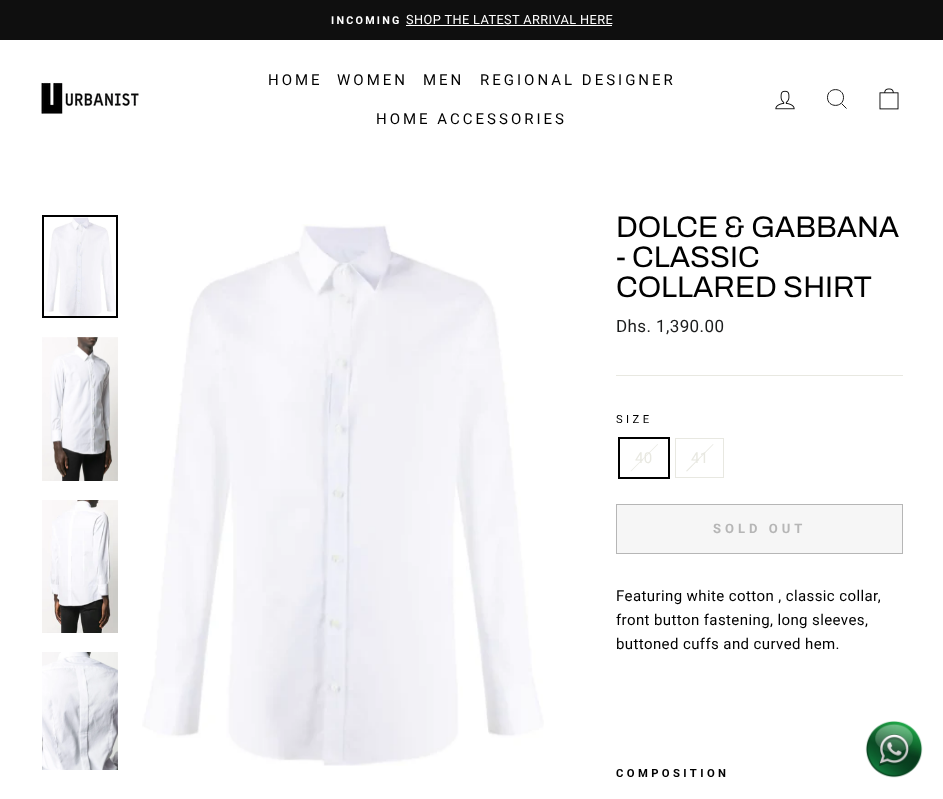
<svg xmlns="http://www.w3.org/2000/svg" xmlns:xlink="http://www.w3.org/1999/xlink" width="943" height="799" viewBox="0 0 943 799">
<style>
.cls-1{font:bold 10.75px Roboto;letter-spacing:2.25px;fill:#ffffff}
.cls-2{font:12.75px Roboto;letter-spacing:0.4px;fill:#ffffff}
.cls-3{font:15px Roboto;letter-spacing:3px;fill:#000000}
.cls-4{font:29.75px Archivo;fill:#000000}
.cls-5{font:17px Roboto;letter-spacing:0.4px;fill:#1c1d1d}
.cls-6{font:11.25px Roboto;letter-spacing:3.4px;fill:#000000}
.cls-7{font:15px Roboto;letter-spacing:0.4px;fill:#e8e8e1}
.cls-8{font:bold 13px Roboto;letter-spacing:4px;fill:#b6b6b6}
.cls-9{font:15px Roboto;letter-spacing:0.4px;fill:#000000}
.cls-10{font:bold 11.25px Roboto;letter-spacing:3.4px;fill:#000000}
</style>
<rect width="100%" height="100%" fill="#ffffff"/>
<rect fill="#0f0f0f" x="0" y="0" width="943" height="40"/>
<rect fill="#ffffff" x="406" y="25" width="206" height="1"/>
<image xlink:href="image0.png" x="41" y="82" width="99" height="32"/>
<image xlink:href="image1.png" x="775" y="90" width="20" height="20"/>
<path fill="none" stroke="#000000" stroke-width="0.9" d="M843.5 97.5C843.5 108 827.5 108 827.5 97.5C827.5 87 843.5 87 843.5 97.5ZM846.5 108.5L841.5 103.5"/>
<image xlink:href="image2.png" x="879" y="88" width="20" height="22"/>
<image xlink:href="image3.png" x="44" y="217" width="72" height="99"/>
<rect fill="none" stroke="#000000" stroke-width="2" x="43" y="216" width="74" height="101"/>
<image xlink:href="image4.png" x="42" y="337" width="76" height="144"/>
<image xlink:href="image5.png" x="42" y="500" width="76" height="133"/>
<image xlink:href="image6.png" x="42" y="652" width="76" height="118"/>
<image xlink:href="image7.png" x="142" y="224" width="402" height="542"/>
<rect fill="#e8e8e1" x="616" y="375" width="287" height="1"/>
<rect fill="none" stroke="#000000" stroke-width="2" x="619" y="438" width="50" height="40"/>
<path fill="#e8e8e1" d="M657.5 444L658 444.5L631 471.5L630.5 471Z"/>
<rect fill="none" stroke="#e8e8e1" x="675.5" y="438.5" width="48" height="39"/>
<path fill="#e8e8e1" d="M713 444L713.5 444.5L687 471.5L686 471Z"/>
<rect fill="#f6f6f6" stroke="#b6b6b6" x="616.5" y="504.5" width="286" height="49"/>
<image xlink:href="image8.png" x="865" y="721" width="58" height="57"/>
<text class="cls-1" x="331" y="24">INCOMING</text>
<text class="cls-2" x="406" y="24">SHOP THE LATEST ARRIVAL HERE</text>
<text class="cls-3" x="268" y="85">HOME</text>
<text class="cls-3" x="337" y="85">WOMEN</text>
<text class="cls-3" x="423" y="85">MEN</text>
<text class="cls-3" x="480" y="85">REGIONAL DESIGNER</text>
<text class="cls-3" x="376" y="124">HOME ACCESSORIES</text>
<text class="cls-4"><tspan x="616" y="237">DOLCE &amp; GABBANA</tspan><tspan x="616" y="267">- CLASSIC</tspan><tspan x="616" y="297">COLLARED SHIRT</tspan></text>
<text class="cls-5" x="616" y="332">Dhs. 1,390.00</text>
<text class="cls-6" x="616" y="423">SIZE</text>
<text class="cls-7" x="635" y="463">40</text>
<text class="cls-7" x="691" y="463">41</text>
<text class="cls-8" x="713" y="533">SOLD OUT</text>
<text class="cls-9"><tspan x="616" y="601">Featuring white cotton , classic collar,</tspan><tspan x="616" y="625">front button fastening, long sleeves,</tspan><tspan x="616" y="649">buttoned cuffs and curved hem.</tspan></text>
<text class="cls-10" x="616" y="777">COMPOSITION</text>
</svg>
